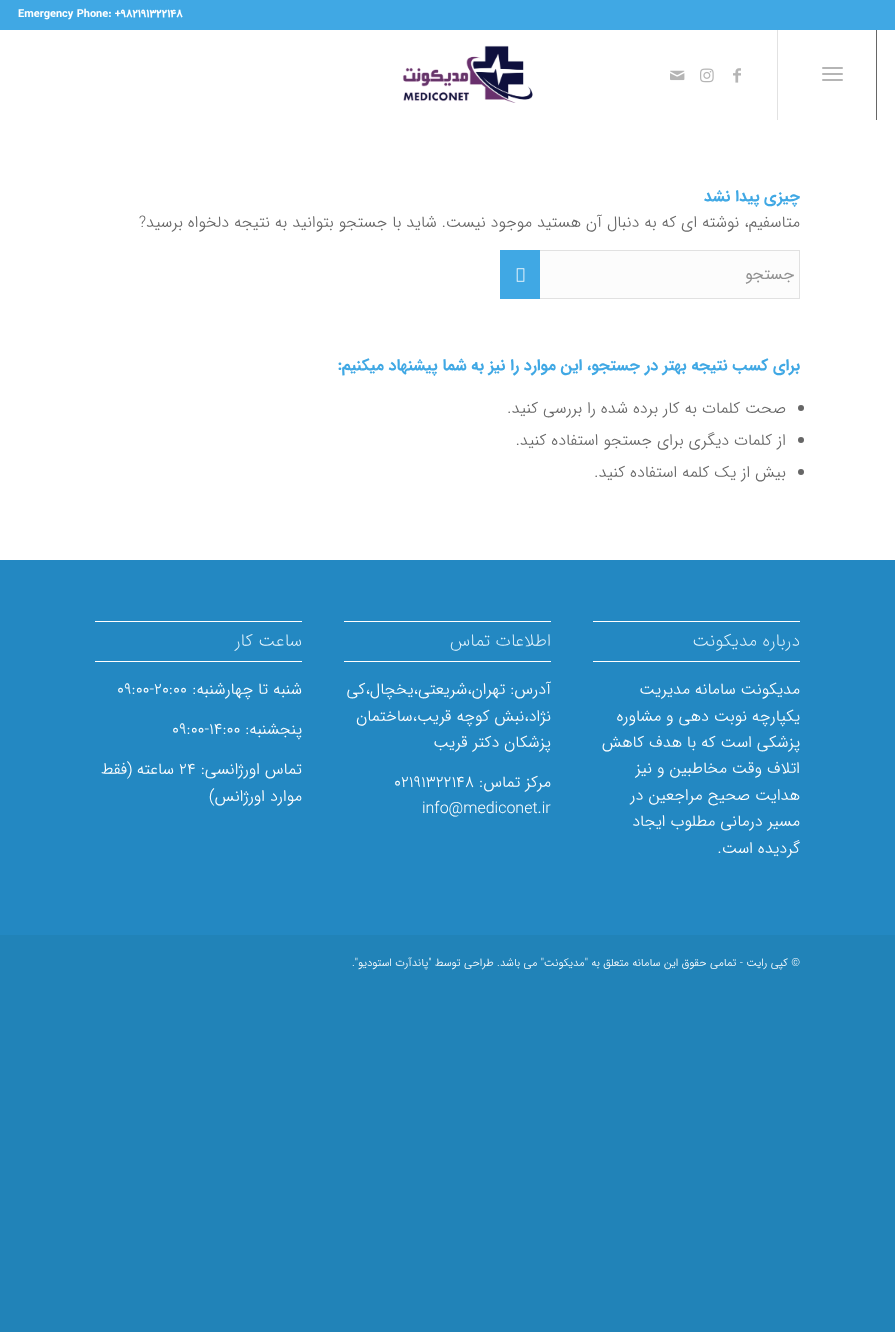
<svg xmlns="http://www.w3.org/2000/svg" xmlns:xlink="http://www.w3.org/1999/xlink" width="895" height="1332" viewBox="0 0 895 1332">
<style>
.cls-1{font:bold 11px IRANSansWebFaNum;fill:#ffffff}
.cls-2{font:bold 16px IRANSansWebFaNum;direction:rtl;fill:#40a8e4}
.cls-3{font:300 16px IRANSansWebFaNum;direction:rtl;fill:#666666}
.cls-4{font:16px IRANSansWebFaNum;direction:rtl;fill:#919191}
.cls-5{font:200 17.5px IRANSansWebFaNum;direction:rtl;fill:#e8f7ff}
.cls-6{font:300 16px IRANSansWebFaNum;direction:rtl;fill:#ffffff}
.cls-7{font:300 16px IRANSansWebFaNum;fill:#ffffff}
.cls-8{font:300 11px IRANSansWebFaNum;direction:rtl;fill:#ffffff}
</style>
<rect width="100%" height="100%" fill="#2183b8"/>
<rect fill="#ffffff" x="0" y="30" width="895" height="530"/>
<rect fill="#40a8e4" x="0" y="0" width="895" height="30"/>
<rect fill="#666666" x="876" y="30" width="1" height="90"/>
<rect fill="#e2e2e2" x="777" y="30" width="1" height="90"/>
<rect fill="#b5b5b5" x="822" y="73" width="21" height="2" rx="1"/>
<rect fill="#b5b5b5" x="822" y="67" width="21" height="2" rx="1"/>
<rect fill="#b5b5b5" x="822" y="79" width="21" height="2" rx="1"/>
<image xlink:href="image0.png" x="733" y="68" width="8" height="15"/>
<image xlink:href="image1.png" x="700" y="68" width="14" height="15"/>
<image xlink:href="image2.png" x="670" y="70" width="15" height="11"/>
<image xlink:href="image3.png" x="402" y="45" width="131" height="58"/>
<rect fill="#fcfcfc" x="540" y="251" width="259" height="47"/>
<rect fill="none" stroke="#e1e1e1" x="500.5" y="250.5" width="299" height="48"/>
<rect fill="#40a8e4" x="500" y="250" width="40" height="49"/>
<image xlink:href="image4.png" x="516" y="268" width="9" height="14"/>
<circle fill="#666666" cx="801" cy="408" r="3"/>
<circle fill="#666666" cx="801" cy="440" r="3"/>
<circle fill="#666666" cx="801" cy="472" r="3"/>
<rect fill="#2388c2" x="0" y="560" width="895" height="375"/>
<rect fill="#ffffff" x="593" y="621" width="207" height="1"/>
<rect fill="#ffffff" x="593" y="661" width="207" height="1"/>
<rect fill="#ffffff" x="344" y="621" width="207" height="1"/>
<rect fill="#ffffff" x="344" y="661" width="207" height="1"/>
<rect fill="#ffffff" x="95" y="621" width="207" height="1"/>
<rect fill="#ffffff" x="95" y="661" width="207" height="1"/>
<text class="cls-1" x="18" y="17">Emergency Phone: +982191322148</text>
<text class="cls-2" x="800" y="201">چیزی پیدا نشد</text>
<text class="cls-3" x="800" y="227">متاسفیم، نوشته ای که به دنبال آن هستید موجود نیست. شاید با جستجو بتوانید به نتیجه دلخواه برسید?</text>
<text class="cls-4" x="794" y="279">جستجو</text>
<text class="cls-2" x="800" y="370">برای کسب نتیجه بهتر در جستجو، این موارد را نیز به شما پیشنهاد میکنیم:</text>
<text class="cls-3" x="786" y="413">صحت کلمات به کار برده شده را بررسی کنید.</text>
<text class="cls-3" x="786" y="445">از کلمات دیگری برای جستجو استفاده کنید.</text>
<text class="cls-3" x="786" y="477">بیش از یک کلمه استفاده کنید.</text>
<text class="cls-5" x="800" y="646">درباره مدیکونت</text>
<text class="cls-6"><tspan x="800" y="694">مدیکونت سامانه مدیریت</tspan><tspan x="800" y="721">یکپارچه نوبت دهی و مشاوره</tspan><tspan x="800" y="747">پزشکی است که با هدف کاهش</tspan><tspan x="800" y="773">اتلاف وقت مخاطبین و نیز</tspan><tspan x="800" y="800">هدایت صحیح مراجعین در</tspan><tspan x="800" y="826">مسیر درمانی مطلوب ایجاد</tspan><tspan x="800" y="853">گردیده است.</tspan></text>
<text class="cls-5" x="551" y="646">اطلاعات تماس</text>
<text class="cls-6"><tspan x="551" y="694">آدرس: تهران،شریعتی،یخچال،کی</tspan><tspan x="551" y="721">نژاد،نبش کوچه قریب،ساختمان</tspan><tspan x="551" y="747">پزشکان دکتر قریب</tspan></text>
<text class="cls-6" x="551" y="787">مرکز تماس:</text>
<text class="cls-7" x="394" y="787">02191322148</text>
<text class="cls-7" x="422" y="813">info@mediconet.ir</text>
<text class="cls-5" x="302" y="646">ساعت کار</text>
<text class="cls-6" x="302" y="694">شنبه تا چهارشنبه:</text>
<text class="cls-7" x="117" y="694">09:00-20:00</text>
<text class="cls-6" x="302" y="734">پنجشنبه:</text>
<text class="cls-7" x="172" y="734">09:00-14:00</text>
<text class="cls-6" x="302" y="774">تماس اورژانسی:</text>
<text class="cls-7" x="179" y="774">24</text>
<text class="cls-6" x="174" y="774">ساعته (فقط</text>
<text class="cls-6" x="302" y="801">موارد اورژانس)</text>
<text class="cls-8" x="800" y="966">© کپی رایت - تمامی حقوق این سامانه متعلق به "مدیکونت" می باشد. طراحی توسط "پاندآرت استودیو".</text>
</svg>
